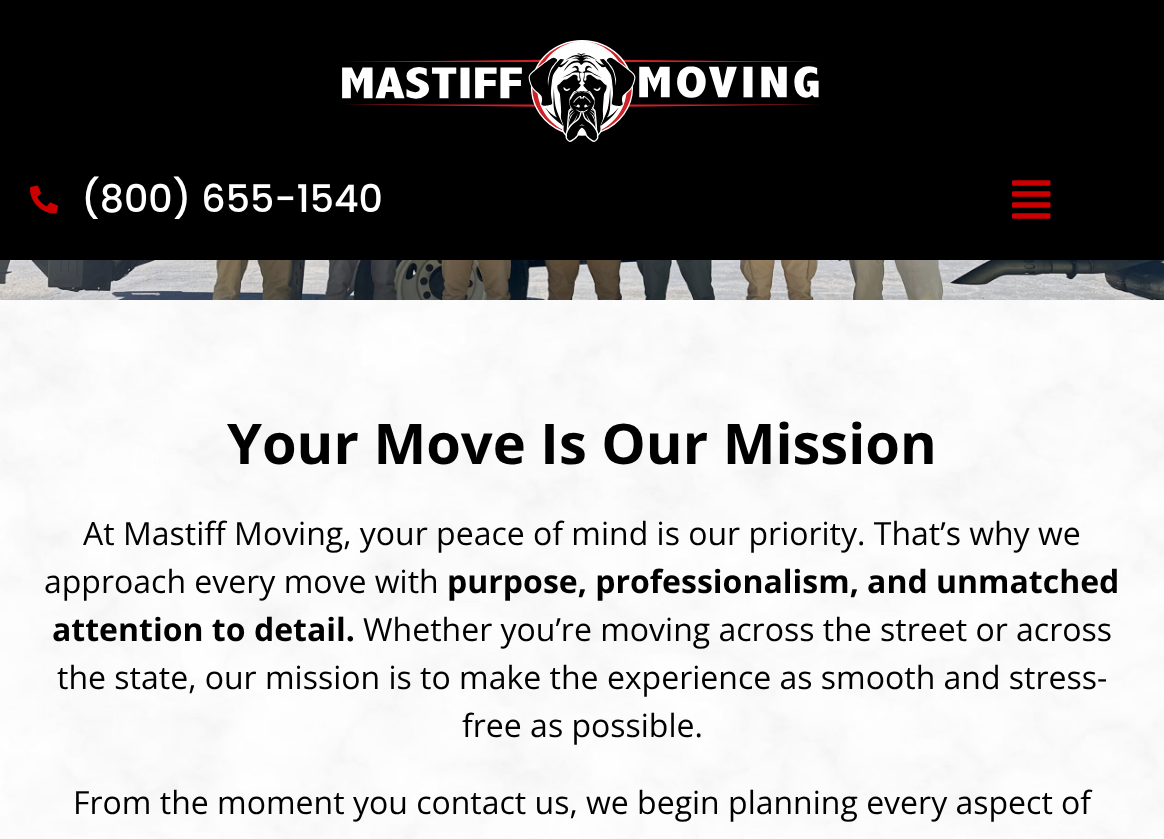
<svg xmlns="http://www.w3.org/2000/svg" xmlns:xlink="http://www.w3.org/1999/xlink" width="1164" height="839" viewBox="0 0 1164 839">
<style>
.cls-1{font:500 38px Poppins;fill:#ffffff}
.cls-2{font:bold 56px Open Sans;fill:#000000}
.cls-3{font:32px Open Sans;fill:#000000}
.cls-4{font:bold 32px Open Sans;fill:#000000}
</style>
<rect width="100%" height="100%" fill="#ffffff"/>
<rect fill="#000000" x="0" y="0" width="1164" height="260"/>
<image xlink:href="image0.png" x="342" y="40" width="478" height="102"/>
<image xlink:href="image1.png" x="30" y="185" width="28" height="29"/>
<image xlink:href="image2.png" x="1012" y="180" width="39" height="39"/>
<image xlink:href="image3.png" x="0" y="260" width="1164" height="40"/>
<image xlink:href="image4.png" x="0" y="300" width="1164" height="539"/>
<text class="cls-1" x="81" y="212">(800) 655-1540</text>
<text class="cls-2" x="227" y="464">Your Move Is Our Mission</text>
<text class="cls-3" x="83" y="545">At Mastiff Moving, your peace of mind is our priority. That’s why we</text>
<text class="cls-3" x="44" y="593">approach every move with</text>
<text class="cls-4" x="447" y="593">purpose, professionalism, and unmatched</text>
<text class="cls-4" x="52" y="641">attention to detail.</text>
<text class="cls-3" x="363" y="641">Whether you’re moving across the street or across</text>
<text class="cls-3" x="57" y="689">the state, our mission is to make the experience as smooth and stress-</text>
<text class="cls-3" x="462" y="737">free as possible.</text>
<text class="cls-3" x="73" y="814">From the moment you contact us, we begin planning every aspect of</text>
</svg>
